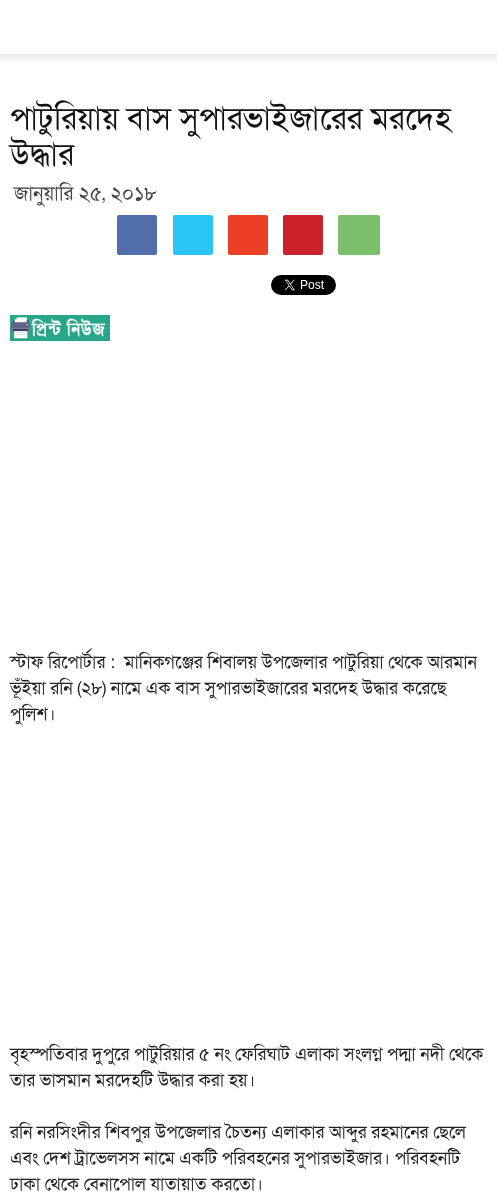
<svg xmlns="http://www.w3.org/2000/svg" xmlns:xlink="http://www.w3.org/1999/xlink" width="497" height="1197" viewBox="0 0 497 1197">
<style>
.cls-1{font:32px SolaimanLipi;fill:#111111}
.cls-2{font:20px SolaimanLipi;fill:#444444}
.cls-3{font:18px SolaimanLipi;fill:#222222}
</style>
<rect width="100%" height="100%" fill="#ffffff"/>
<image xlink:href="image0.png" x="0" y="54" width="497" height="9"/>
<rect fill="#516eab" x="117" y="215" width="40" height="40" rx="2"/>
<rect fill="#29c5f6" x="173" y="215" width="40" height="40" rx="2"/>
<rect fill="#eb4026" x="228" y="215" width="40" height="40" rx="2"/>
<rect fill="#ca212a" x="283" y="215" width="40" height="40" rx="2"/>
<rect fill="#7bbf6a" x="338" y="215" width="42" height="40" rx="2"/>
<image xlink:href="image1.png" x="271" y="275" width="65" height="20"/>
<image xlink:href="image2.png" x="10" y="315" width="100" height="26"/>
<text class="cls-1"><tspan x="10" y="129">পাটুরিয়ায় বাস সুপারভাইজারের মরদেহ</tspan><tspan x="10" y="165">উদ্ধার</tspan></text>
<text class="cls-2" x="14" y="200">জানুয়ারি ২৫, ২০১৮</text>
<text class="cls-3" xml:space="preserve"><tspan x="10" y="668">স্টাফ রিপোর্টার :  মানিকগঞ্জের শিবালয় উপজেলার পাটুরিয়া থেকে আরমান</tspan><tspan x="10" y="694">ভূঁইয়া রনি (২৮) নামে এক বাস সুপারভাইজারের মরদেহ উদ্ধার করেছে</tspan><tspan x="10" y="720">পুলিশ।</tspan></text>
<text class="cls-3"><tspan x="10" y="1060">বৃহস্পতিবার দুপুরে পাটুরিয়ার ৫ নং ফেরিঘাট এলাকা সংলগ্ন পদ্মা নদী থেকে</tspan><tspan x="10" y="1086">তার ভাসমান মরদেহটি উদ্ধার করা হয়।</tspan></text>
<text class="cls-3"><tspan x="10" y="1138">রনি নরসিংদীর শিবপুর উপজেলার চৈতন্য এলাকার আব্দুর রহমানের ছেলে</tspan><tspan x="10" y="1164">এবং দেশ ট্রাভেলসস নামে একটি পরিবহনের সুপারভাইজার। পরিবহনটি</tspan><tspan x="10" y="1190">ঢাকা থেকে বেনাপোল যাতায়াত করতো।</tspan></text>
</svg>
